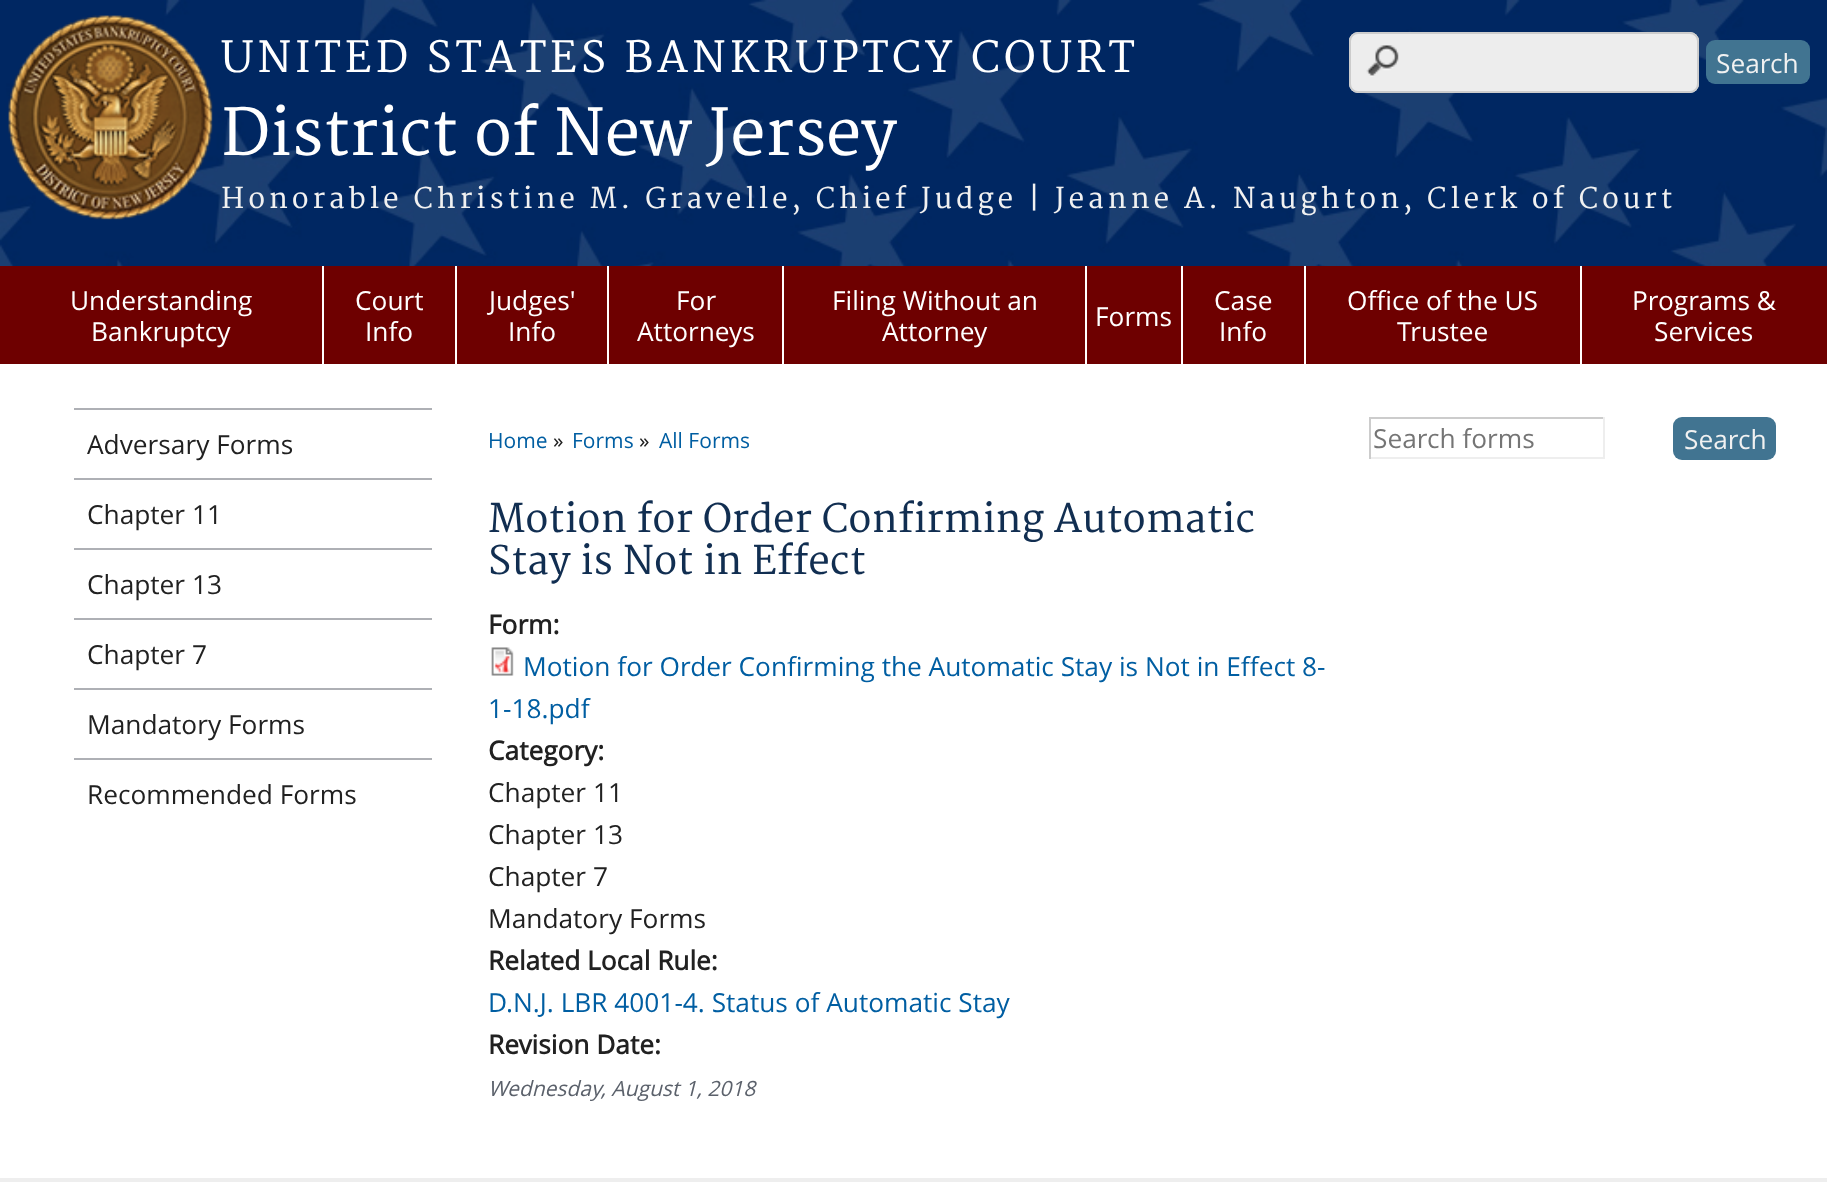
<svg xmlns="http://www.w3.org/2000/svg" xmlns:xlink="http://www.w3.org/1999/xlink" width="1827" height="1182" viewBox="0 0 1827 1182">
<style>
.cls-1{font:42px Merriweather;letter-spacing:3.85px;fill:#ffffff}
.cls-2{font:63px Merriweather;fill:#ffffff}
.cls-3{font:28px Merriweather;letter-spacing:3.85px;fill:#f1f1f1}
.cls-4{font:26.25px Open Sans;fill:#f1f1f1}
.cls-5{font:26.25px Open Sans;fill:#ffffff}
.cls-6{font:26.25px Open Sans;fill:#212121}
.cls-7{font:21px Open Sans;fill:#005ea2}
.cls-8{font:21px Open Sans;fill:#212121}
.cls-9{font:38.5px Merriweather;fill:#112e51}
.cls-10{font:bold 26.25px Open Sans;fill:#212121}
.cls-11{font:26.25px Open Sans;fill:#005ea2}
.cls-12{font:italic 21px Open Sans;fill:#5b616b}
.cls-13{font:26.25px Open Sans;fill:#757575}
</style>
<rect width="100%" height="100%" fill="#ffffff"/>
<image xlink:href="image0.png" x="0" y="0" width="1827" height="266"/>
<image xlink:href="image1.png" x="8" y="15" width="205" height="205"/>
<rect fill="#ededed" x="1349" y="32" width="350" height="61" rx="9"/>
<image xlink:href="image2.png" x="1366" y="45" width="33" height="32"/>
<rect fill="none" stroke="#cccccc" stroke-width="2" x="1350" y="33" width="348" height="59" rx="8"/>
<rect fill="#417491" x="1706" y="40" width="104" height="44" rx="9"/>
<rect fill="#6e0000" x="0" y="266" width="1827" height="98"/>
<rect fill="#ffffff" x="322" y="266" width="2" height="98"/>
<rect fill="#ffffff" x="455" y="266" width="2" height="98"/>
<rect fill="#ffffff" x="607" y="266" width="2" height="98"/>
<rect fill="#ffffff" x="782" y="266" width="2" height="98"/>
<rect fill="#ffffff" x="1085" y="266" width="2" height="98"/>
<rect fill="#ffffff" x="1181" y="266" width="2" height="98"/>
<rect fill="#ffffff" x="1304" y="266" width="2" height="98"/>
<rect fill="#ffffff" x="1580" y="266" width="2" height="98"/>
<rect fill="#aeb0b5" x="74" y="408" width="358" height="2"/>
<rect fill="#aeb0b5" x="74" y="478" width="358" height="2"/>
<rect fill="#aeb0b5" x="74" y="548" width="358" height="2"/>
<rect fill="#aeb0b5" x="74" y="618" width="358" height="2"/>
<rect fill="#aeb0b5" x="74" y="688" width="358" height="2"/>
<rect fill="#aeb0b5" x="74" y="758" width="358" height="2"/>
<image xlink:href="image3.png" x="491" y="647" width="23" height="29"/>
<rect fill="#cccccc" x="1369" y="417" width="236" height="2"/>
<rect fill="#eeeeee" x="1603" y="417" width="2" height="42"/>
<rect fill="#eeeeee" x="1369" y="457" width="236" height="2"/>
<rect fill="#cccccc" x="1369" y="417" width="2" height="42"/>
<rect fill="#417491" x="1673" y="417" width="103" height="43" rx="9"/>
<rect fill="#eeeeee" x="0" y="1178" width="1827" height="4"/>
<text class="cls-1" x="221" y="72">UNITED STATES BANKRUPTCY COURT</text>
<text class="cls-2" x="221" y="155">District of New Jersey</text>
<text class="cls-3" x="221" y="208">Honorable Christine M. Gravelle, Chief Judge | Jeanne A. Naughton, Clerk of Court</text>
<text class="cls-4" x="1716" y="73">Search</text>
<text class="cls-5" x="70" y="310">Understanding</text>
<text class="cls-5" x="91" y="341">Bankruptcy</text>
<text class="cls-5" x="355" y="310">Court</text>
<text class="cls-5" x="365" y="341">Info</text>
<text class="cls-5" x="489" y="310">Judges'</text>
<text class="cls-5" x="508" y="341">Info</text>
<text class="cls-5" x="676" y="310">For</text>
<text class="cls-5" x="637" y="341">Attorneys</text>
<text class="cls-5" x="832" y="310">Filing Without an</text>
<text class="cls-5" x="882" y="341">Attorney</text>
<text class="cls-5" x="1095" y="326">Forms</text>
<text class="cls-5" x="1214" y="310">Case</text>
<text class="cls-5" x="1219" y="341">Info</text>
<text class="cls-5" x="1347" y="310">Office of the US</text>
<text class="cls-5" x="1397" y="341">Trustee</text>
<text class="cls-5" x="1632" y="310">Programs &amp;</text>
<text class="cls-5" x="1654" y="341">Services</text>
<text class="cls-6" x="87" y="454">Adversary Forms</text>
<text class="cls-6" x="87" y="524">Chapter 11</text>
<text class="cls-6" x="87" y="594">Chapter 13</text>
<text class="cls-6" x="87" y="664">Chapter 7</text>
<text class="cls-6" x="87" y="734">Mandatory Forms</text>
<text class="cls-6" x="87" y="804">Recommended Forms</text>
<text class="cls-7" x="488" y="448">Home</text>
<text class="cls-8" x="553" y="448">»</text>
<text class="cls-7" x="572" y="448">Forms</text>
<text class="cls-8" x="639" y="448">»</text>
<text class="cls-7" x="659" y="448">All Forms</text>
<text class="cls-9"><tspan x="488" y="532">Motion for Order Confirming Automatic</tspan><tspan x="488" y="574">Stay is Not in Effect</tspan></text>
<text class="cls-10" x="488" y="634">Form:</text>
<text class="cls-11" x="523" y="676">Motion for Order Confirming the Automatic Stay is Not in Effect 8-</text>
<text class="cls-11" x="488" y="718">1-18.pdf</text>
<text class="cls-10" x="488" y="760">Category:</text>
<text class="cls-6"><tspan x="488" y="802">Chapter 11</tspan><tspan x="488" y="844">Chapter 13</tspan><tspan x="488" y="886">Chapter 7</tspan><tspan x="488" y="928">Mandatory Forms</tspan></text>
<text class="cls-10" x="488" y="970">Related Local Rule:</text>
<text class="cls-11" x="488" y="1012">D.N.J. LBR 4001-4. Status of Automatic Stay</text>
<text class="cls-10" x="488" y="1054">Revision Date:</text>
<text class="cls-12" x="488" y="1096">Wednesday, August 1, 2018</text>
<text class="cls-13" x="1373" y="448">Search forms</text>
<text class="cls-4" x="1684" y="449">Search</text>
</svg>
